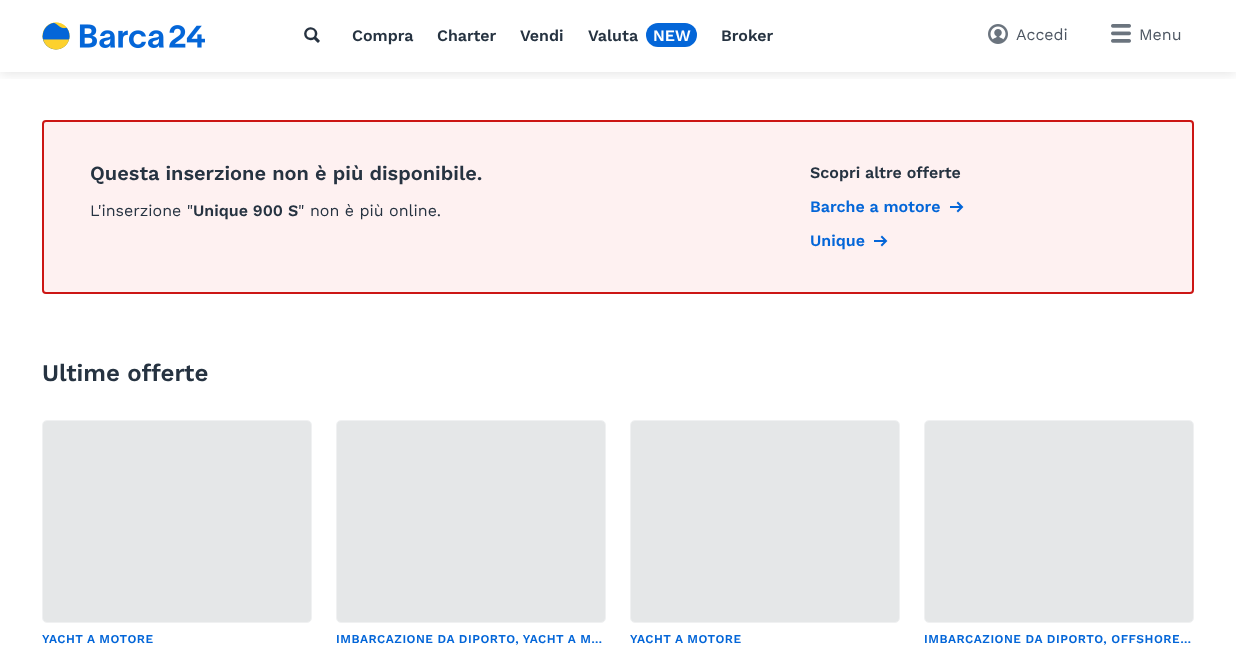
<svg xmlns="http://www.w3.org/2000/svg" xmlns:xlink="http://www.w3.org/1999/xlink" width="1236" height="645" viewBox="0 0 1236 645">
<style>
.cls-1{font:600 16px Work Sans;fill:#263341}
.cls-2{font:600 16px Work Sans;fill:#ffffff}
.cls-3{font:16px Work Sans;fill:#4d5662}
.cls-4{font:600 20px Work Sans;fill:#263341}
.cls-5{font:16px Work Sans;fill:#263341}
.cls-6{font:600 16px Work Sans;fill:#0466d8}
.cls-7{font:600 24px Work Sans;fill:#263341}
.cls-8{font:600 12px Work Sans;letter-spacing:0.5px;fill:#0466d8}
</style>
<defs>
<clipPath id="clip1"><rect x="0" y="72" width="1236" height="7"/></clipPath>
</defs>
<rect width="100%" height="100%" fill="#ffffff"/>
<g clip-path="url(#clip1)">
<rect fill="#000000" fill-opacity="0.1" filter="blur(6px)" x="0" y="2" width="1236" height="72"/>
</g>
<image xlink:href="image0.png" x="42" y="22" width="163" height="28"/>
<image xlink:href="image1.png" x="304" y="27" width="16" height="16"/>
<rect fill="#0466d8" x="646" y="23" width="51" height="24" rx="12"/>
<image xlink:href="image2.png" x="988" y="24" width="20" height="20"/>
<image xlink:href="image3.png" x="1111" y="24" width="20" height="19"/>
<rect fill="#fef1f1" stroke="#cc1614" stroke-width="2" x="43" y="121" width="1150" height="172" rx="3"/>
<path fill="none" stroke="#0466d8" stroke-width="2" stroke-linecap="square" d="M958 203L962 207L958 211M951 207H961"/>
<path fill="none" stroke="#0466d8" stroke-width="2" stroke-linecap="square" d="M882 237L886 241L882 245M875 241H885"/>
<rect fill="none" stroke="#f0f1f2" x="42.5" y="420.5" width="269" height="202" rx="4.5"/>
<rect fill="#e5e7e8" x="43" y="421" width="268" height="201" rx="4"/>
<rect fill="none" stroke="#f0f1f2" x="336.5" y="420.5" width="269" height="202" rx="4.5"/>
<rect fill="#e5e7e8" x="337" y="421" width="268" height="201" rx="4"/>
<rect fill="none" stroke="#f0f1f2" x="630.5" y="420.5" width="269" height="202" rx="4.5"/>
<rect fill="#e5e7e8" x="631" y="421" width="268" height="201" rx="4"/>
<rect fill="none" stroke="#f0f1f2" x="924.5" y="420.5" width="269" height="202" rx="4.5"/>
<rect fill="#e5e7e8" x="925" y="421" width="268" height="201" rx="4"/>
<text class="cls-1" x="352" y="41">Compra</text>
<text class="cls-1" x="437" y="41">Charter</text>
<text class="cls-1" x="520" y="41">Vendi</text>
<text class="cls-1" x="588" y="41">Valuta</text>
<text class="cls-2" x="653" y="41">NEW</text>
<text class="cls-1" x="721" y="41">Broker</text>
<text class="cls-3" x="1016" y="40">Accedi</text>
<text class="cls-3" x="1139" y="40">Menu</text>
<text class="cls-4" x="90" y="180">Questa inserzione non è più disponibile.</text>
<text class="cls-5" x="90" y="216">L'inserzione "</text>
<text class="cls-1" x="193" y="216">Unique 900 S</text>
<text class="cls-5" x="298" y="216">" non è più online.</text>
<text class="cls-1" x="810" y="178">Scopri altre offerte</text>
<text class="cls-6" x="810" y="212">Barche a motore</text>
<text class="cls-6" x="810" y="246">Unique</text>
<text class="cls-7" x="42" y="381">Ultime offerte</text>
<text class="cls-8" x="42" y="643">YACHT A MOTORE</text>
<text class="cls-8" x="336" y="643">IMBARCAZIONE DA DIPORTO, YACHT A M…</text>
<text class="cls-8" x="630" y="643">YACHT A MOTORE</text>
<text class="cls-8" x="924" y="643">IMBARCAZIONE DA DIPORTO, OFFSHORE…</text>
</svg>
